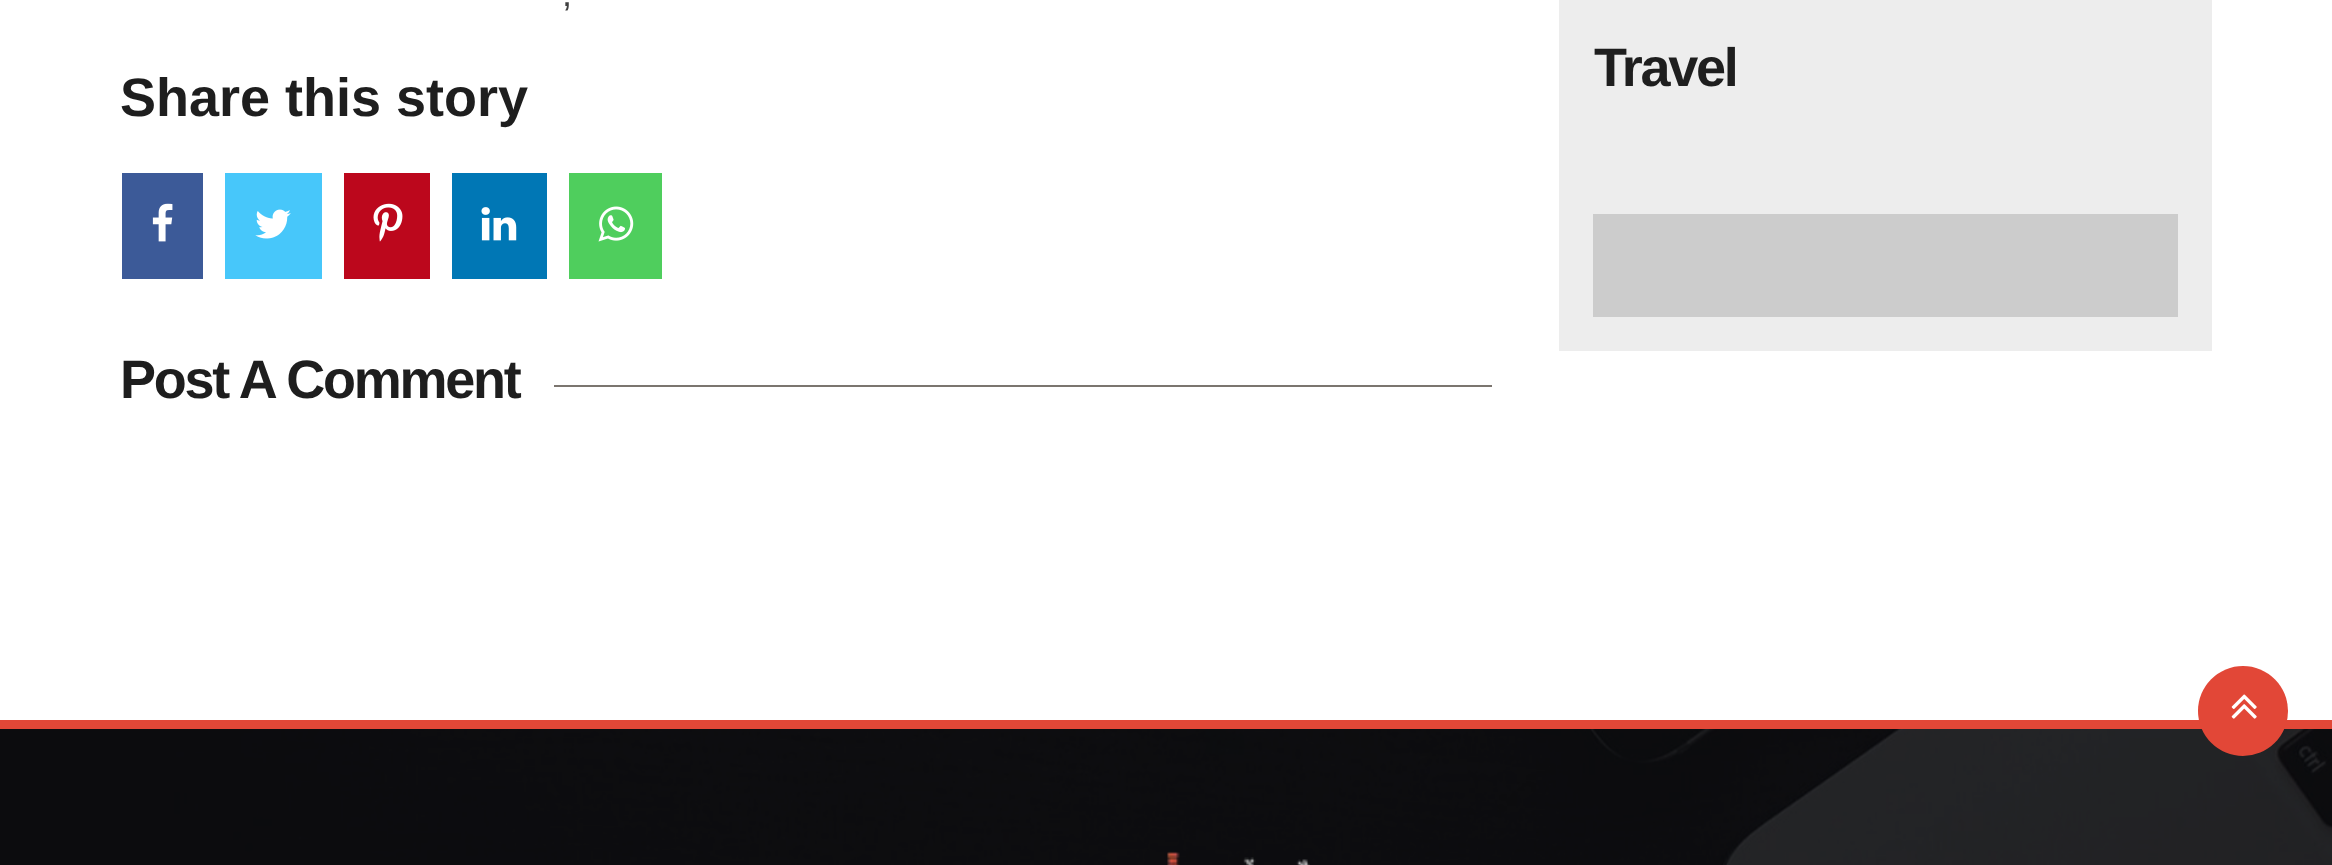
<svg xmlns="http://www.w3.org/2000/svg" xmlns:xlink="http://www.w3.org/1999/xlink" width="2332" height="865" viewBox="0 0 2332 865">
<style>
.cls-1{font:36px Liberation Sans;fill:#404040}
.cls-2{font:bold 54px Liberation Sans;fill:#1e1e1e}
.cls-3{font:bold 54px Liberation Sans;letter-spacing:-2.25px;fill:#1e1e1e}
</style>
<rect width="100%" height="100%" fill="#ffffff"/>
<rect fill="#3c5a98" x="122" y="173" width="81" height="106"/>
<image xlink:href="image0.png" x="152" y="203" width="21" height="39"/>
<rect fill="#47c7fa" x="225" y="173" width="97" height="106"/>
<image xlink:href="image1.png" x="255" y="209" width="36" height="30"/>
<rect fill="#bc071c" x="344" y="173" width="86" height="106"/>
<image xlink:href="image2.png" x="373" y="203" width="30" height="39"/>
<rect fill="#0077b5" x="452" y="173" width="95" height="106"/>
<image xlink:href="image3.png" x="481" y="207" width="36" height="34"/>
<rect fill="#4fce5d" x="569" y="173" width="93" height="106"/>
<image xlink:href="image4.png" x="598" y="206" width="36" height="36"/>
<rect fill="#7b756f" x="554" y="385" width="938" height="2"/>
<rect fill="#ededed" x="1559" y="0" width="653" height="351"/>
<rect fill="#cccccc" x="1593" y="214" width="585" height="103"/>
<image xlink:href="image5.png" x="0" y="729" width="2332" height="136"/>
<rect fill="#e24737" x="0" y="720" width="2332" height="9"/>
<circle fill="#e24737" cx="2243" cy="711" r="45"/>
<image xlink:href="image6.png" x="2231" y="694" width="26" height="25"/>
<image xlink:href="image7.png" x="1167" y="851" width="143" height="14"/>
<text class="cls-1" x="562" y="6">,</text>
<text class="cls-2" x="120" y="116">Share this story</text>
<text class="cls-3" x="120" y="398">Post A Comment</text>
<text class="cls-3" x="1594" y="86">Travel</text>
</svg>
